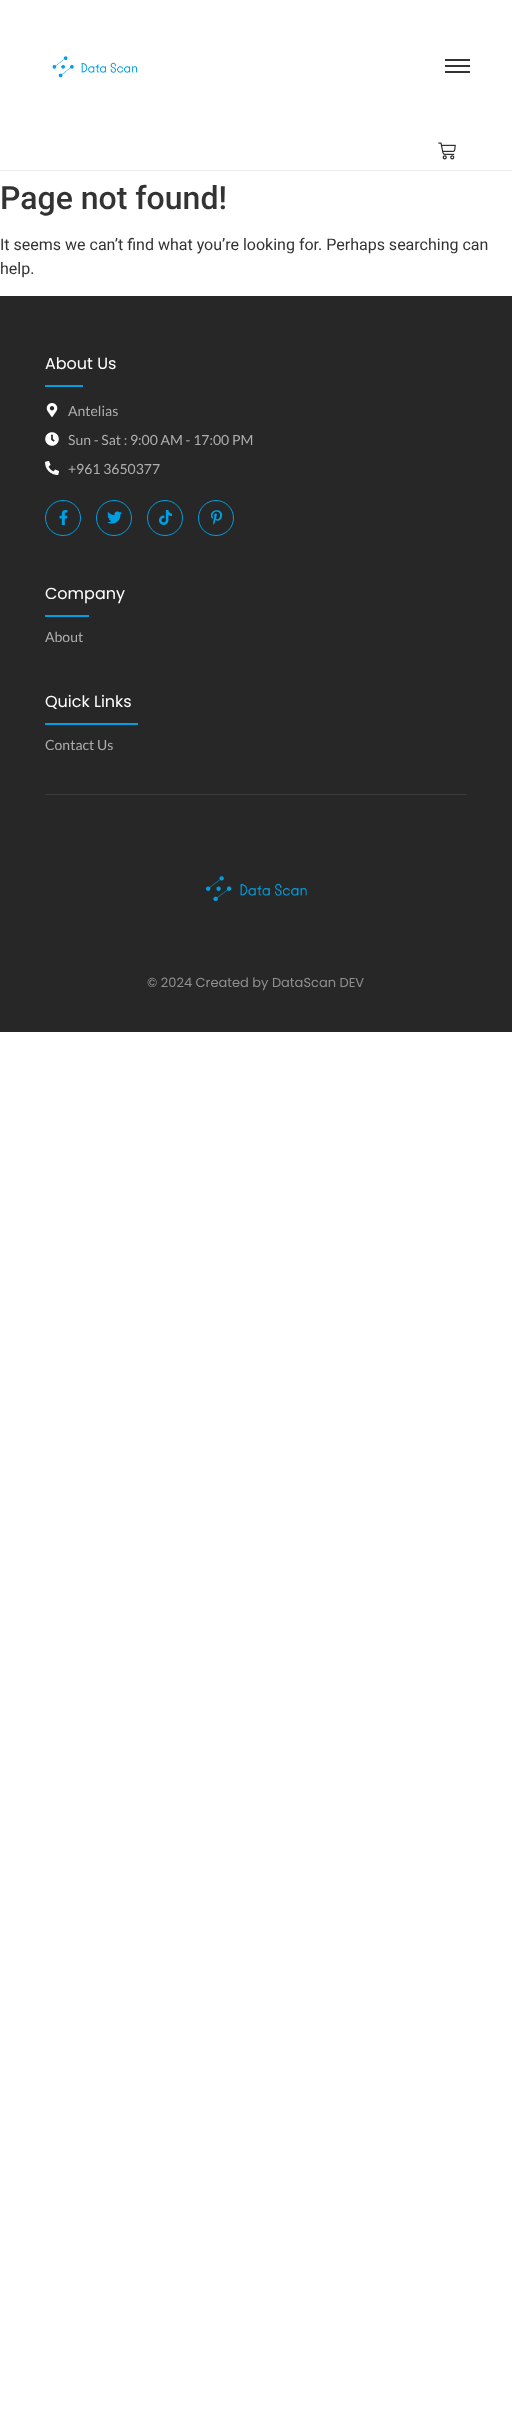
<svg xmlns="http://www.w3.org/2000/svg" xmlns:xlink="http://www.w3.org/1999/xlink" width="512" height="2416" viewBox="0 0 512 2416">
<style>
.cls-1{font:500 32px Roboto;fill:#333333}
.cls-2{font:16px Roboto;fill:#333333}
.cls-3{font:16px Poppins;fill:#ffffff}
.cls-4{font:14px Lato;fill:#aeaeae}
.cls-5{font:13px Poppins;fill:#909090}
</style>
<rect width="100%" height="100%" fill="#ffffff"/>
<rect fill="#eaeaea" x="0" y="170" width="512" height="1"/>
<image xlink:href="image0.png" x="52" y="56" width="86" height="22"/>
<rect fill="#333333" x="445" y="59" width="25" height="2"/>
<rect fill="#333333" x="445" y="65" width="25" height="2"/>
<rect fill="#333333" x="445" y="71" width="25" height="2"/>
<image xlink:href="image1.png" x="438" y="142" width="18" height="18"/>
<rect fill="#272727" x="0" y="296" width="512" height="736"/>
<rect fill="#009fe3" x="45" y="385" width="38" height="2"/>
<image xlink:href="image2.png" x="46" y="403" width="12" height="14"/>
<image xlink:href="image3.png" x="45" y="432" width="14" height="14"/>
<image xlink:href="image4.png" x="45" y="461" width="14" height="14"/>
<circle fill="none" stroke="#009fe3" cx="63" cy="518" r="17.5"/>
<image xlink:href="image5.png" x="59" y="510" width="9" height="15"/>
<circle fill="none" stroke="#009fe3" cx="114" cy="518" r="17.5"/>
<image xlink:href="image6.png" x="107" y="511" width="15" height="13"/>
<circle fill="none" stroke="#009fe3" cx="165" cy="518" r="17.5"/>
<image xlink:href="image7.png" x="159" y="510" width="14" height="15"/>
<circle fill="none" stroke="#009fe3" cx="216" cy="518" r="17.5"/>
<image xlink:href="image8.png" x="210" y="510" width="13" height="15"/>
<rect fill="#009fe3" x="45" y="615" width="44" height="2"/>
<rect fill="#009fe3" x="45" y="723" width="93" height="2"/>
<rect fill="#3a3a3a" x="45" y="794" width="422" height="1"/>
<image xlink:href="image9.png" x="205" y="876" width="102" height="25"/>
<text class="cls-1" x="0" y="209">Page not found!</text>
<text class="cls-2"><tspan x="0" y="250">It seems we can’t find what you’re looking for. Perhaps searching can</tspan><tspan x="0" y="274">help.</tspan></text>
<text class="cls-3" x="45" y="369">About Us</text>
<text class="cls-4" x="68" y="416">Antelias</text>
<text class="cls-4" x="68" y="445">Sun - Sat : 9:00 AM - 17:00 PM</text>
<text class="cls-4" x="68" y="474">+961 3650377</text>
<text class="cls-3" x="45" y="599">Company</text>
<text class="cls-4" x="45" y="642">About</text>
<text class="cls-3" x="45" y="707">Quick Links</text>
<text class="cls-4" x="45" y="750">Contact Us</text>
<text class="cls-5" x="147" y="987">© 2024 Created by DataScan DEV</text>
</svg>
